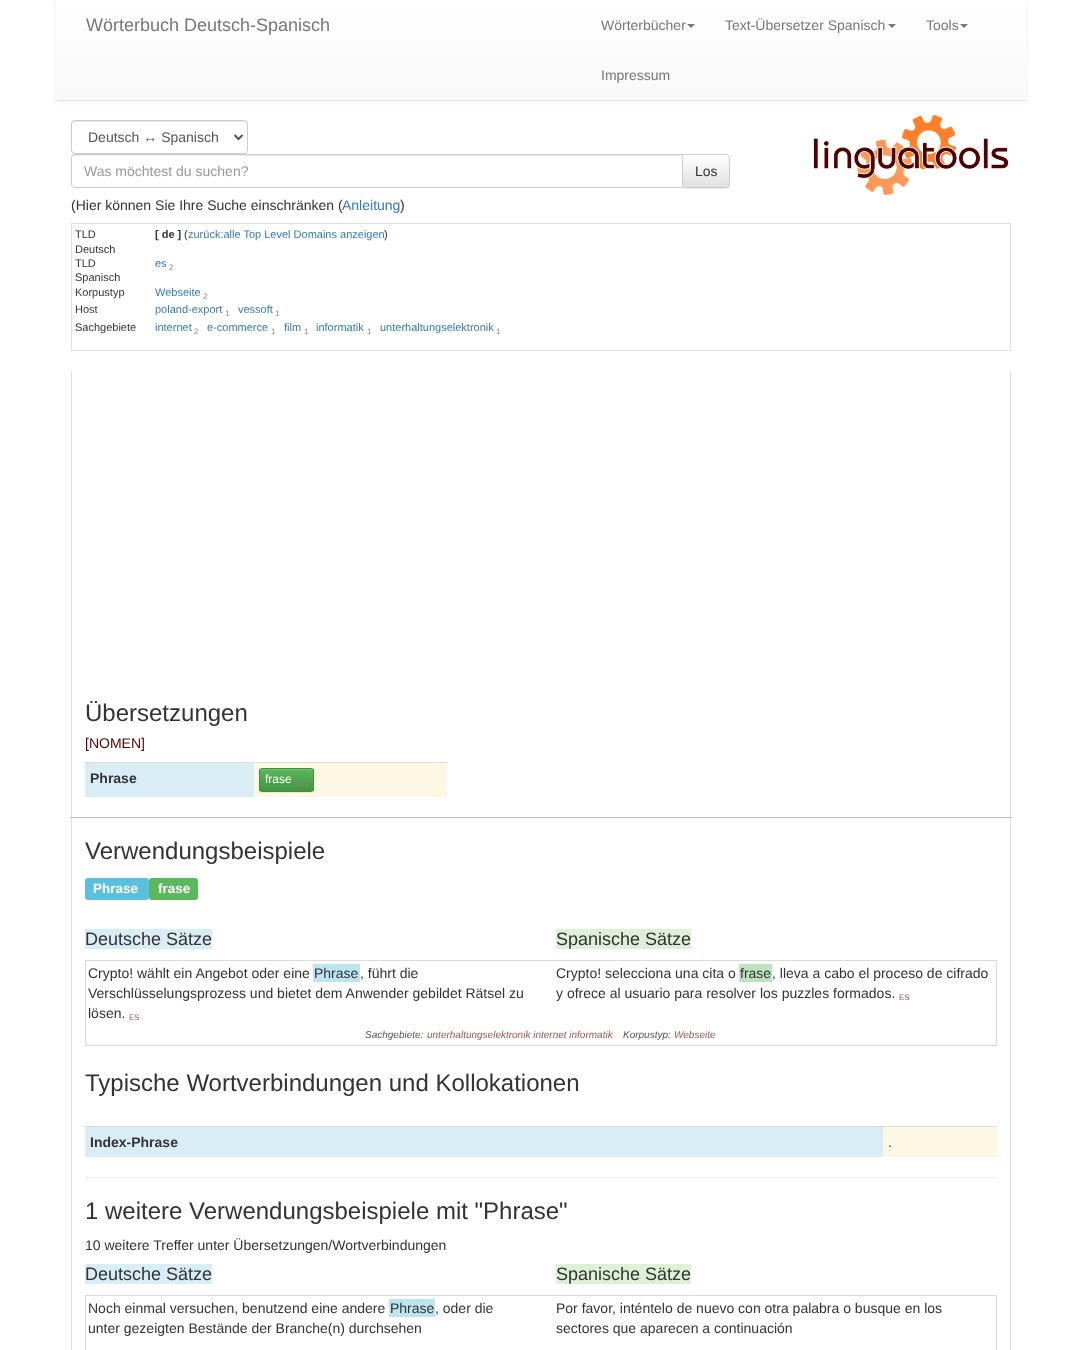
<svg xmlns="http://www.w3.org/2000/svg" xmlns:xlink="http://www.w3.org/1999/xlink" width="1081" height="1350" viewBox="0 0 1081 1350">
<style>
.cls-1{font:18px Liberation Sans;fill:#777777}
.cls-2{font:14px Liberation Sans;fill:#777777}
.cls-3{font:14px Liberation Sans;fill:#555555}
.cls-4{font:14px Liberation Sans;fill:#999999}
.cls-5{font:14px Liberation Sans;fill:#333333}
.cls-6{font:14px Liberation Sans;fill:#337ab7}
.cls-7{font:11px Liberation Sans;fill:#333333}
.cls-8{font:bold 11px Liberation Sans;fill:#333333}
.cls-9{font:11px Liberation Sans;fill:#337ab7}
.cls-10{font:8px Liberation Sans;fill:#858585}
.cls-11{font:24px Liberation Sans;fill:#333333}
.cls-12{font:14px Liberation Sans;fill:#550000}
.cls-13{font:bold 14px Liberation Sans;fill:#333333}
.cls-14{font:12px Liberation Sans;fill:#ffffff}
.cls-15{font:bold 13.5px Liberation Sans;fill:#ffffff}
.cls-16{font:18px Liberation Sans;fill:#333333}
.cls-17{font:8px Liberation Sans;fill:#995555}
.cls-18{font:italic 10px Liberation Sans;fill:#555555}
.cls-19{font:italic 10px Liberation Sans;fill:#995555}
</style>
<defs>
<linearGradient id="g1" gradientUnits="userSpaceOnUse" x1="541" y1="0" x2="541" y2="100"><stop offset="0" stop-color="#ffffff"/><stop offset="1" stop-color="#f8f8f8"/></linearGradient>
<clipPath id="clip1"><path d="M682 154H726C728 154 730 156 730 158V184C730 186 728 188 726 188H682Z"/></clipPath>
<linearGradient id="g2" gradientUnits="userSpaceOnUse" x1="706" y1="155" x2="706" y2="187"><stop offset="0" stop-color="#ffffff"/><stop offset="1" stop-color="#e0e0e0"/></linearGradient>
<clipPath id="clip2"><rect x="259" y="768" width="55" height="24" rx="3"/></clipPath>
<linearGradient id="g3" gradientUnits="userSpaceOnUse" x1="287" y1="769" x2="287" y2="791"><stop offset="0" stop-color="#5cb85c"/><stop offset="1" stop-color="#419641"/></linearGradient>
</defs>
<rect width="100%" height="100%" fill="#ffffff"/>
<rect fill="#000000" fill-opacity="0.07" filter="blur(2.5px)" x="56" y="1" width="970" height="101"/>
<rect fill="url(#g1)" x="56" y="0" width="970" height="100"/>
<rect fill="#e7e7e7" x="56" y="100" width="970" height="1"/>
<path fill="#777777" d="M687 24H695L691 28Z"/>
<path fill="#777777" d="M888 24H896L892 28Z"/>
<path fill="#777777" d="M960 24H968L964 28Z"/>
<path fill="#ececec" d="M75 122H244C246 122 247 123 247 125V124C247 122 246 121 244 121H75C73 121 72 122 72 124V125C72 123 73 122 75 122Z"/>
<rect fill="none" stroke="#cccccc" x="71.5" y="120.5" width="176" height="33" rx="3.5"/>
<path fill="none" stroke="#555555" stroke-width="2" d="M234.5 135L238.5 139L242.5 135"/>
<rect fill="#000000" fill-opacity="0.07" filter="blur(0.5px)" x="682" y="155" width="48" height="34" rx="4"/>
<g clip-path="url(#clip1)">
<rect fill="url(#g2)" x="683" y="155" width="47" height="32"/>
</g>
<path fill="none" stroke="#cccccc" d="M682.5 154.5H726C728 154.5 729.5 156 729.5 158V184C729.5 186 728 187.5 726 187.5H682.5Z"/>
<path fill="#ffffff" d="M75 154H683V188H75C73 188 71 186 71 184V158C71 156 73 154 75 154Z"/>
<path fill="#ececec" d="M75 156H682V155H75C73 155 72 156 72 158V159C72 157 73 156 75 156Z"/>
<path fill="none" stroke="#cccccc" d="M75 154.5H682.5V187.5H75C73 187.5 71.5 186 71.5 184V158C71.5 156 73 154.5 75 154.5Z"/>
<image xlink:href="image0.png" x="813" y="115" width="196" height="80"/>
<rect fill="none" stroke="#e0e0e0" x="71.5" y="223.5" width="939" height="127"/>
<rect fill="#e0e0e0" x="1010" y="371" width="1" height="979"/>
<rect fill="#e0e0e0" x="71" y="371" width="1" height="979"/>
<rect fill="#d9edf7" x="85" y="763" width="169" height="34"/>
<rect fill="#fcf8e3" x="254" y="763" width="193" height="34"/>
<rect fill="#dddddd" x="84" y="762" width="364" height="1"/>
<rect fill="#000000" fill-opacity="0.07" filter="blur(0.5px)" x="259" y="769" width="55" height="24" rx="3"/>
<g clip-path="url(#clip2)">
<rect fill="url(#g3)" x="259" y="769" width="55" height="22"/>
</g>
<path fill="#74c274" d="M262 770H311C312 770 313 771 313 772C313 767 307 769 303 769H270C266 769 260 767 260 772C260 771 261 770 262 770Z"/>
<rect fill="none" stroke="#3e8f3e" x="259.5" y="768.5" width="54" height="23" rx="2.5"/>
<rect fill="#c0c0c0" x="70" y="817" width="942" height="1"/>
<rect fill="#5bc0de" x="85" y="878" width="64" height="22" rx="3"/>
<rect fill="#5cb85c" x="149" y="878" width="49" height="22" rx="3"/>
<rect fill="#d9edf7" x="85" y="929" width="127" height="20"/>
<rect fill="#dff0d8" x="556" y="929" width="135" height="20"/>
<rect fill="none" stroke="#dbdbdb" x="85.5" y="960.5" width="911" height="85"/>
<rect fill="#bde5f1" x="313" y="964" width="47" height="18"/>
<rect fill="#bde2bd" x="739" y="964" width="33" height="18"/>
<rect fill="#d9edf7" x="85" y="1127" width="798" height="30"/>
<rect fill="#fcf8e3" x="883" y="1127" width="114" height="30"/>
<rect fill="#dddddd" x="84" y="1126" width="913" height="1"/>
<rect fill="#eeeeee" x="85" y="1177" width="912" height="1"/>
<rect fill="#d9edf7" x="85" y="1264" width="127" height="20"/>
<rect fill="#dff0d8" x="556" y="1264" width="135" height="20"/>
<rect fill="none" stroke="#dbdbdb" x="85.5" y="1295.5" width="911" height="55"/>
<rect fill="#bde5f1" x="389" y="1299" width="46" height="18"/>
<text class="cls-1" x="86" y="31">Wörterbuch Deutsch-Spanisch</text>
<text class="cls-2" x="601" y="30">Wörterbücher</text>
<text class="cls-2" x="725" y="30">Text-Übersetzer Spanisch</text>
<text class="cls-2" x="926" y="30">Tools</text>
<text class="cls-2" x="601" y="80">Impressum</text>
<text class="cls-3" x="88" y="142">Deutsch ↔ Spanisch</text>
<text class="cls-4" x="84" y="176">Was möchtest du suchen?</text>
<text class="cls-5" x="695" y="176">Los</text>
<text class="cls-5" x="71" y="210">(Hier können Sie Ihre Suche einschränken (</text>
<text class="cls-6" x="342" y="210">Anleitung</text>
<text class="cls-5" x="400" y="210">)</text>
<text class="cls-7"><tspan x="75" y="238">TLD</tspan><tspan x="75" y="253">Deutsch</tspan></text>
<text class="cls-8" x="155" y="238">[ de ]</text>
<text class="cls-7" x="184" y="238">(</text>
<text class="cls-9" x="188" y="238">zurück:alle Top Level Domains anzeigen</text>
<text class="cls-7" x="384" y="238">)</text>
<text class="cls-7"><tspan x="75" y="267">TLD</tspan><tspan x="75" y="281">Spanisch</tspan></text>
<text class="cls-9" x="155" y="267">es</text>
<text class="cls-10" x="169" y="270">2</text>
<text class="cls-7" x="75" y="296">Korpustyp</text>
<text class="cls-9" x="155" y="296">Webseite</text>
<text class="cls-10" x="203" y="299">2</text>
<text class="cls-7" x="75" y="313">Host</text>
<text class="cls-9" x="155" y="313">poland-export</text>
<text class="cls-10" x="225" y="316">1</text>
<text class="cls-9" x="238" y="313">vessoft</text>
<text class="cls-10" x="275" y="316">1</text>
<text class="cls-7" x="75" y="331">Sachgebiete</text>
<text class="cls-9" x="155" y="331">internet</text>
<text class="cls-10" x="194" y="334">2</text>
<text class="cls-9" x="207" y="331">e-commerce</text>
<text class="cls-10" x="271" y="334">1</text>
<text class="cls-9" x="284" y="331">film</text>
<text class="cls-10" x="304" y="334">1</text>
<text class="cls-9" x="316" y="331">informatik</text>
<text class="cls-10" x="367" y="334">1</text>
<text class="cls-9" x="380" y="331">unterhaltungselektronik</text>
<text class="cls-10" x="496" y="334">1</text>
<text class="cls-11" x="85" y="721">Übersetzungen</text>
<text class="cls-12" x="85" y="748">[NOMEN]</text>
<text class="cls-13" x="90" y="783">Phrase</text>
<text class="cls-14" x="265" y="783">frase</text>
<text class="cls-10" x="294" y="786">180</text>
<text class="cls-11" x="85" y="859">Verwendungsbeispiele</text>
<text class="cls-15" x="93" y="893">Phrase</text>
<text class="cls-15" x="158" y="893">frase</text>
<text class="cls-16" x="85" y="945">Deutsche Sätze</text>
<text class="cls-16" x="556" y="945">Spanische Sätze</text>
<text class="cls-5" x="88" y="978">Crypto! wählt ein Angebot oder eine</text>
<text class="cls-5" x="314" y="978">Phrase</text>
<text class="cls-5" x="360" y="978">, führt die</text>
<text class="cls-5"><tspan x="88" y="998">Verschlüsselungsprozess und bietet dem Anwender gebildet Rätsel zu</tspan><tspan x="88" y="1018">lösen.</tspan></text>
<text class="cls-17" x="129" y="1020">ES</text>
<text class="cls-5" x="556" y="978">Crypto! selecciona una cita o</text>
<text class="cls-5" x="740" y="978">frase</text>
<text class="cls-5" x="772" y="978">, lleva a cabo el proceso de cifrado</text>
<text class="cls-5" x="556" y="998">y ofrece al usuario para resolver los puzzles formados.</text>
<text class="cls-17" x="899" y="1000">ES</text>
<text class="cls-18" x="365" y="1038">Sachgebiete:</text>
<text class="cls-19" x="427" y="1038">unterhaltungselektronik internet informatik</text>
<text class="cls-18" x="623" y="1038">Korpustyp:</text>
<text class="cls-19" x="674" y="1038">Webseite</text>
<text class="cls-11" x="85" y="1091">Typische Wortverbindungen und Kollokationen</text>
<text class="cls-13" x="90" y="1147">Index-Phrase</text>
<text class="cls-5" x="888" y="1147">.</text>
<text class="cls-11" x="85" y="1219">1 weitere Verwendungsbeispiele mit "Phrase"</text>
<text class="cls-5" x="85" y="1250">10 weitere Treffer unter Übersetzungen/Wortverbindungen</text>
<text class="cls-16" x="85" y="1280">Deutsche Sätze</text>
<text class="cls-16" x="556" y="1280">Spanische Sätze</text>
<text class="cls-5" x="88" y="1313">Noch einmal versuchen, benutzend eine andere</text>
<text class="cls-5" x="390" y="1313">Phrase</text>
<text class="cls-5" x="435" y="1313">, oder die</text>
<text class="cls-5" x="88" y="1333">unter gezeigten Bestände der Branche(n) durchsehen</text>
<text class="cls-5"><tspan x="556" y="1313">Por favor, inténtelo de nuevo con otra palabra o busque en los</tspan><tspan x="556" y="1333">sectores que aparecen a continuación</tspan></text>
</svg>
